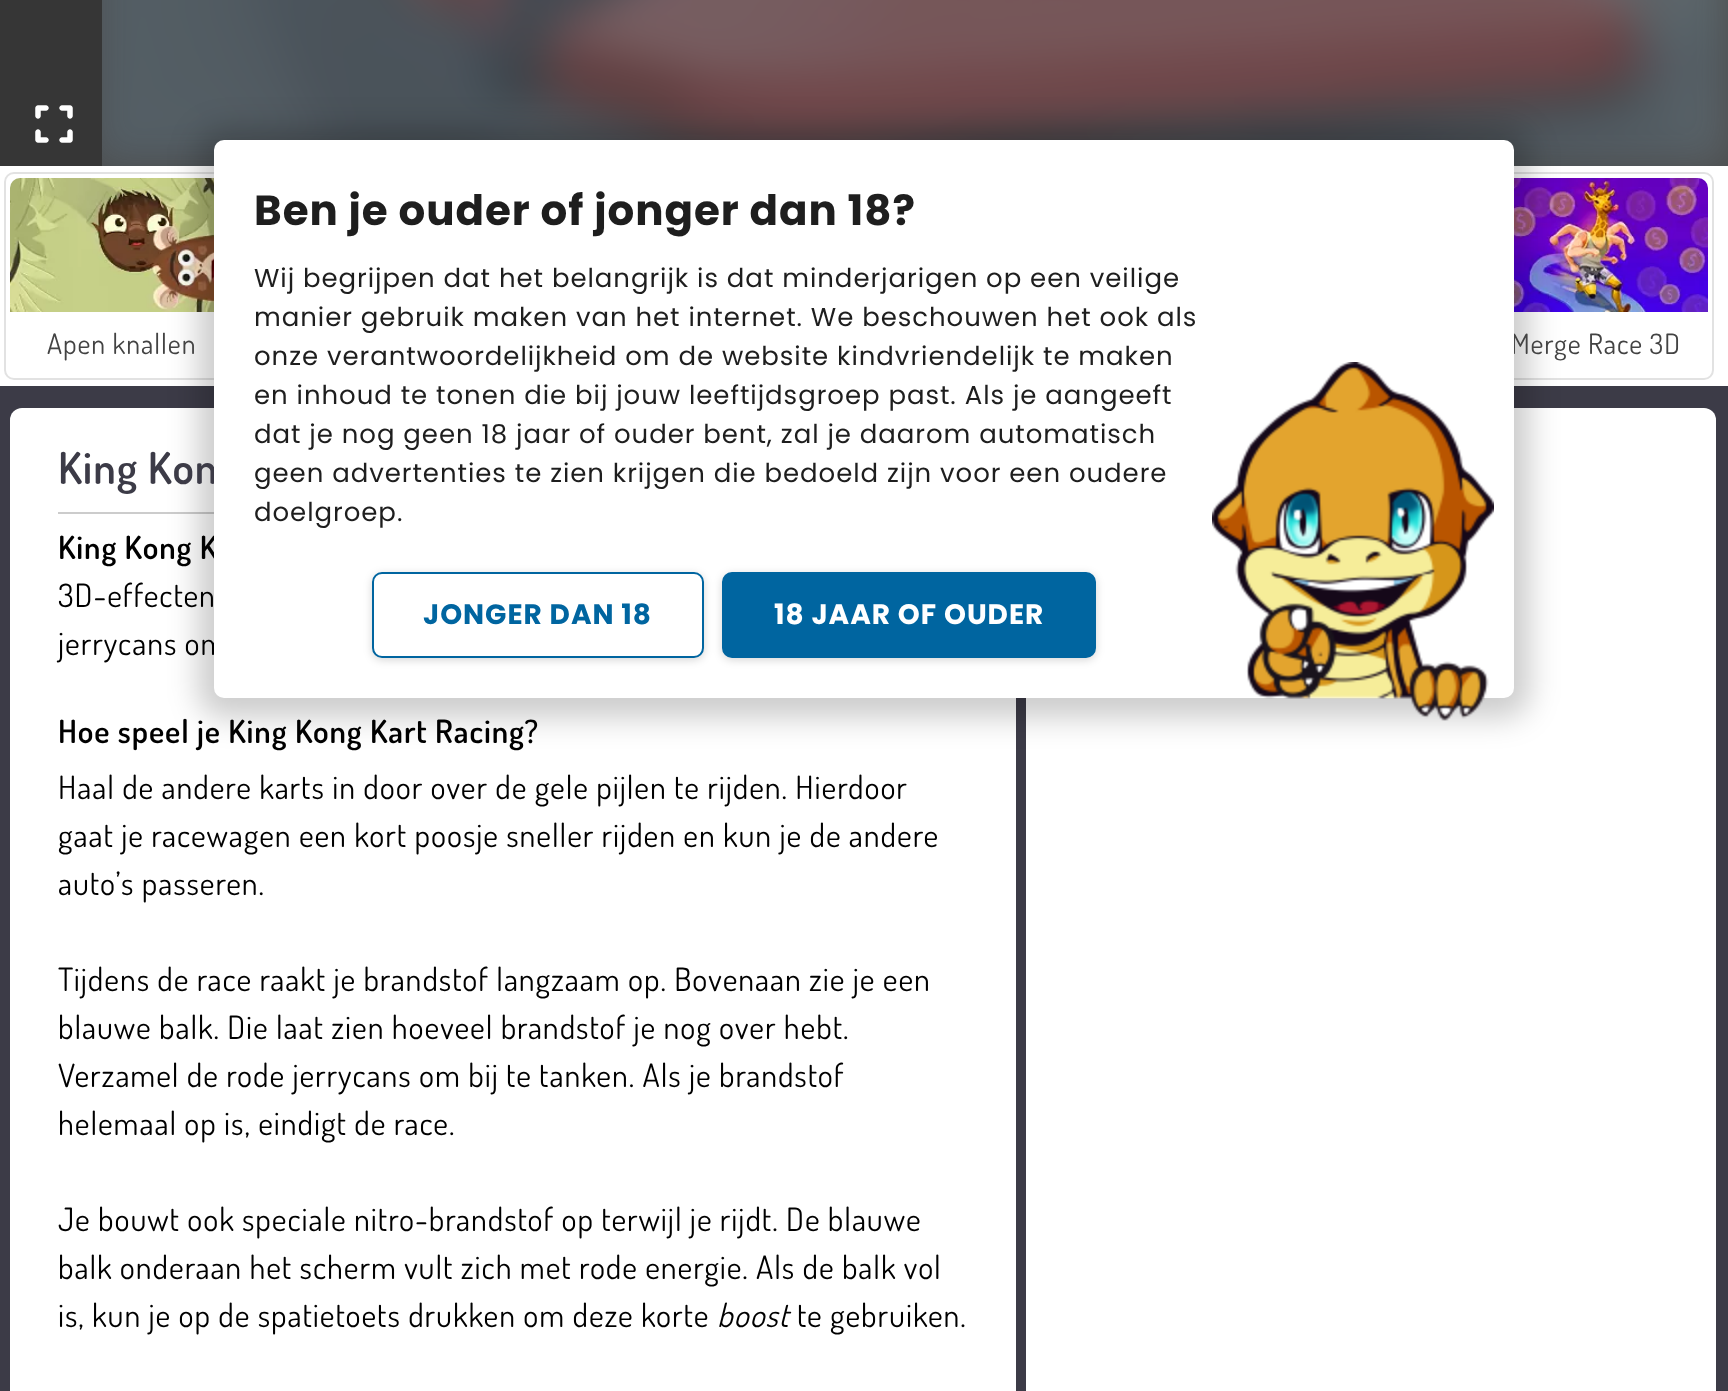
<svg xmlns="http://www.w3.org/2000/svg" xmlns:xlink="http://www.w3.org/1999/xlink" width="1728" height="1391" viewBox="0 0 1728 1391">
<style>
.cls-1{font:28px Dosis;letter-spacing:0.95px;fill:#434343}
.cls-2{font:600 44px Dosis;letter-spacing:0.95px;fill:#3c3b47}
.cls-3{font:600 32px Dosis;letter-spacing:0.95px;fill:#000000}
.cls-4{font:32px Dosis;letter-spacing:0.95px;fill:#000000}
.cls-5{font:bold 28px Poppins;letter-spacing:0.95px;fill:#ffffff}
.cls-6{font:bold 28px Poppins;letter-spacing:0.95px;fill:#0065a0}
.cls-7{font:26px Poppins;letter-spacing:0.95px;fill:#1e1e1e}
.cls-8{font:bold 42px Poppins;letter-spacing:0.95px;fill:#1e1e1e}
.cls-9{font:italic 32px Dosis;letter-spacing:0.95px;fill:#000000}
</style>
<rect width="100%" height="100%" fill="#3c3b47"/>
<rect fill="#ffffff" x="0" y="166" width="1728" height="220"/>
<rect fill="#4c4c4c" x="102" y="0" width="1626" height="166"/>
<image xlink:href="image2.png" x="102" y="0" width="1626" height="166"/>
<rect fill="none" stroke="#e2e2e2" stroke-width="2" x="5" y="173" width="234" height="206" rx="9"/>
<image xlink:href="image3.png" x="10" y="178" width="204" height="134"/>
<rect fill="none" stroke="#e2e2e2" stroke-width="2" x="1479" y="173" width="234" height="206" rx="9"/>
<image xlink:href="image4.png" x="1514" y="178" width="194" height="134"/>
<rect fill="#ffffff" x="10" y="408" width="1006" height="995" rx="12"/>
<rect fill="#cccccc" x="58" y="512" width="156" height="2"/>
<rect fill="#ffffff" x="1026" y="408" width="690" height="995" rx="12"/>
<rect fill="#000000" fill-opacity="0.2" filter="blur(15px)" x="198" y="128" width="1332" height="590" rx="26"/>
<rect fill="#363636" x="0" y="0" width="102" height="166"/>
<image xlink:href="image1.png" x="35" y="105" width="38" height="38"/>
<text class="cls-1" x="47" y="354">Apen knallen</text>
<text class="cls-1" x="1511" y="354">Merge Race 3D</text>
<text class="cls-2" x="58" y="484">King Kon</text>
<text class="cls-3" x="58" y="559">King Kong K</text>
<text class="cls-4"><tspan x="58" y="607">3D-effecten</tspan><tspan x="58" y="655">jerrycans om</tspan></text>
<rect fill="#ffffff" x="214" y="140" width="1300" height="558" rx="10"/>
<image xlink:href="image0.png" x="1212" y="362" width="282" height="359"/>
<rect fill="#000000" fill-opacity="0.16" filter="blur(4px)" x="722" y="574" width="374" height="86" rx="10"/>
<rect fill="#0065a0" stroke="#0065a0" stroke-width="2" x="723" y="573" width="372" height="84" rx="9"/>
<text class="cls-5" x="774" y="624">18 JAAR OF OUDER</text>
<rect fill="#000000" fill-opacity="0.16" filter="blur(4px)" x="372" y="574" width="332" height="86" rx="10"/>
<rect fill="#ffffff" stroke="#0065a0" stroke-width="2" x="373" y="573" width="330" height="84" rx="9"/>
<text class="cls-6" x="423" y="624">JONGER DAN 18</text>
<text class="cls-7" x="254" y="521">doelgroep.</text>
<text class="cls-7" x="254" y="482">geen advertenties te zien krijgen die bedoeld zijn voor een oudere</text>
<text class="cls-7" x="254" y="443">dat je nog geen 18 jaar of ouder bent, zal je daarom automatisch</text>
<text class="cls-7" x="254" y="404">en inhoud te tonen die bij jouw leeftijdsgroep past. Als je aangeeft</text>
<text class="cls-7" x="254" y="365">onze verantwoordelijkheid om de website kindvriendelijk te maken</text>
<text class="cls-7" x="254" y="326">manier gebruik maken van het internet. We beschouwen het ook als</text>
<text class="cls-7" x="254" y="287">Wij begrijpen dat het belangrijk is dat minderjarigen op een veilige</text>
<text class="cls-8" x="254" y="225">Ben je ouder of jonger dan 18?</text>
<text class="cls-3" x="58" y="743">Hoe speel je King Kong Kart Racing?</text>
<text class="cls-4"><tspan x="58" y="799">Haal de andere karts in door over de gele pijlen te rijden. Hierdoor</tspan><tspan x="58" y="847">gaat je racewagen een kort poosje sneller rijden en kun je de andere</tspan><tspan x="58" y="895">auto’s passeren.</tspan></text>
<text class="cls-4"><tspan x="58" y="991">Tijdens de race raakt je brandstof langzaam op. Bovenaan zie je een</tspan><tspan x="58" y="1039">blauwe balk. Die laat zien hoeveel brandstof je nog over hebt.</tspan><tspan x="58" y="1087">Verzamel de rode jerrycans om bij te tanken. Als je brandstof</tspan><tspan x="58" y="1135">helemaal op is, eindigt de race.</tspan></text>
<text class="cls-4"><tspan x="58" y="1231">Je bouwt ook speciale nitro-brandstof op terwijl je rijdt. De blauwe</tspan><tspan x="58" y="1279">balk onderaan het scherm vult zich met rode energie. Als de balk vol</tspan><tspan x="58" y="1327">is, kun je op de spatietoets drukken om deze korte</tspan></text>
<text class="cls-9" x="717" y="1327">boost</text>
<text class="cls-4" x="797" y="1327">te gebruiken.</text>
</svg>
